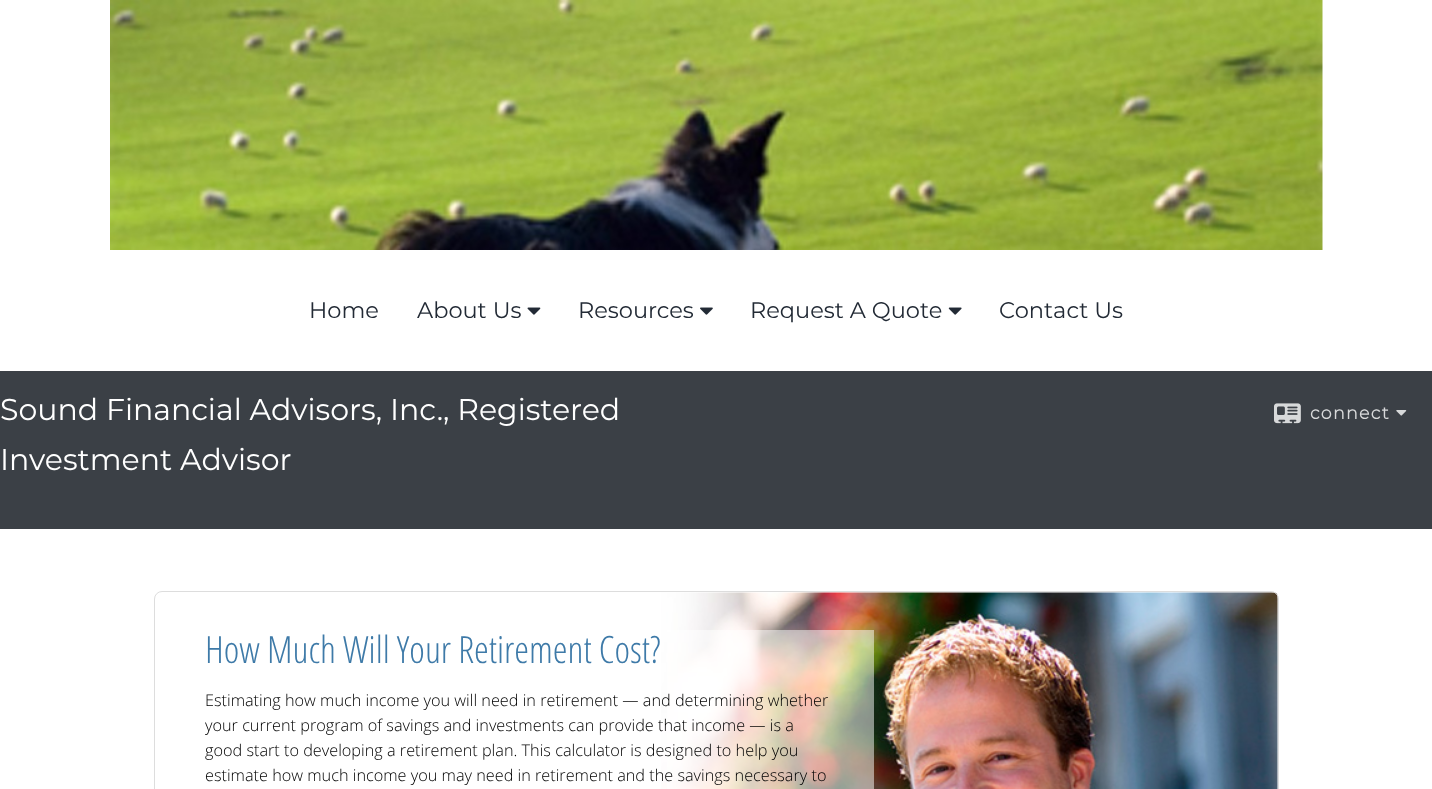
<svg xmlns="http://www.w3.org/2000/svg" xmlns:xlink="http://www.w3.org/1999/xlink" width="1432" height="789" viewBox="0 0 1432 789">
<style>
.cls-1{font:22.5px Montserrat;fill:#222a35}
.cls-2{font:30px Montserrat;fill:#ffffff}
.cls-3{font:bold 17.5px Montserrat;letter-spacing:1.25px;fill:#d8d9da}
.cls-4{font:300 37.5px Open Sans Condensed;fill:#3e7aa8}
.cls-5{font:300 16.25px Open Sans;fill:#000000}
</style>
<rect width="100%" height="100%" fill="#3b4046"/>
<rect fill="#ffffff" x="0" y="0" width="1432" height="371"/>
<image xlink:href="image0.png" x="110" y="0" width="1213" height="250"/>
<image xlink:href="image1.png" x="527" y="307" width="14" height="8"/>
<image xlink:href="image2.png" x="700" y="307" width="13" height="8"/>
<image xlink:href="image3.png" x="948" y="307" width="14" height="8"/>
<image xlink:href="image4.png" x="1274" y="403" width="27" height="21"/>
<image xlink:href="image5.png" x="1396" y="410" width="11" height="6"/>
<rect fill="#ffffff" x="0" y="529" width="1432" height="260"/>
<image xlink:href="image6.png" x="661" y="592" width="617" height="197"/>
<rect fill="none" stroke="#dddddd" x="154.5" y="591.5" width="1124" height="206" rx="7.5"/>
<rect fill="#ffffff" fill-opacity="0.5" x="667" y="630" width="207" height="159"/>
<text class="cls-1" x="309" y="318">Home</text>
<text class="cls-1" x="417" y="318">About Us</text>
<text class="cls-1" x="578" y="318">Resources</text>
<text class="cls-1" x="750" y="318">Request A Quote</text>
<text class="cls-1" x="999" y="318">Contact Us</text>
<text class="cls-2"><tspan x="0" y="420">Sound Financial Advisors, Inc., Registered</tspan><tspan x="0" y="470">Investment Advisor</tspan></text>
<text class="cls-3" x="1310" y="419">connect</text>
<text class="cls-4" x="205" y="663">How Much Will Your Retirement Cost?</text>
<text class="cls-5"><tspan x="205" y="706">Estimating how much income you will need in retirement — and determining whether</tspan><tspan x="205" y="731">your current program of savings and investments can provide that income — is a</tspan><tspan x="205" y="756">good start to developing a retirement plan. This calculator is designed to help you</tspan><tspan x="205" y="781">estimate how much income you may need in retirement and the savings necessary to</tspan></text>
</svg>
